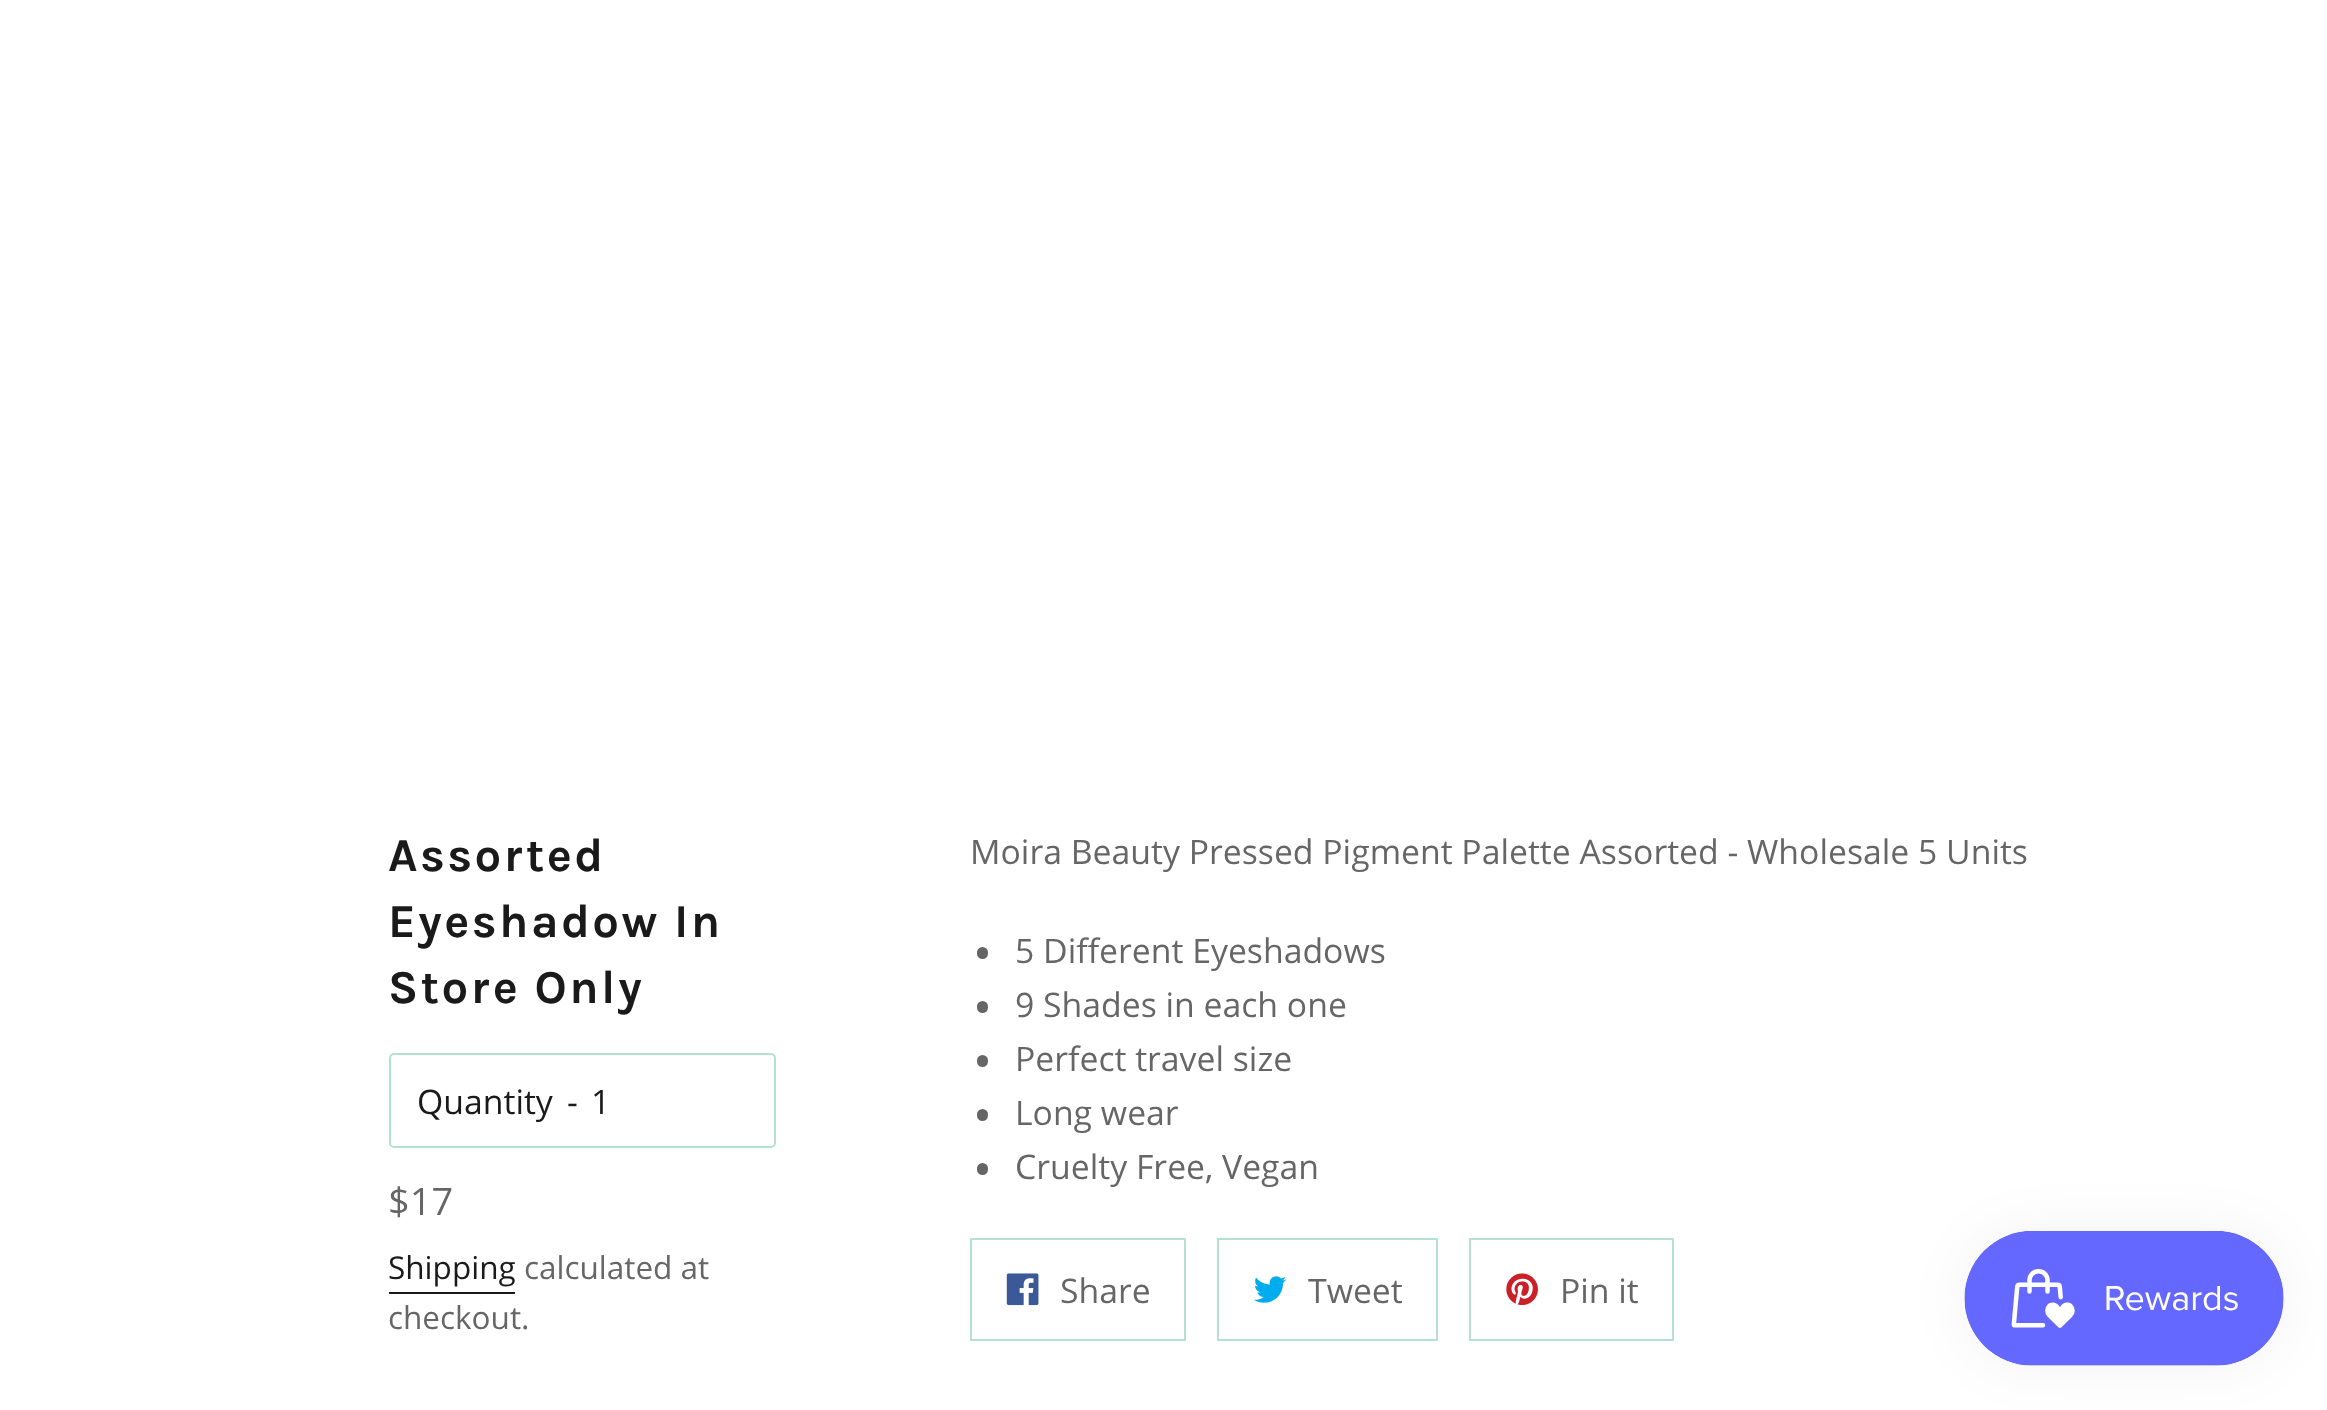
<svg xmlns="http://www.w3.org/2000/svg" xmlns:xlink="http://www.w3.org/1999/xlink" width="2327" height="1410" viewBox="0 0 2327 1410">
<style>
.cls-1{font:bold 47.25px Karla;letter-spacing:2.4px;fill:#1a1a1a}
.cls-2{font:33.75px Open Sans;fill:#1a1a1a}
.cls-3{font:38px Open Sans;fill:#666666}
.cls-4{font:31.5px Open Sans;fill:#1a1a1a}
.cls-5{font:31.5px Open Sans;fill:#666666}
.cls-6{font:33.75px Open Sans;fill:#666666}
</style>
<rect width="100%" height="100%" fill="#ffffff"/>
<rect fill="none" stroke="#b6e1d0" stroke-width="2" x="390" y="1054" width="385" height="93" rx="4"/>
<rect fill="#1a1a1a" x="389" y="1292" width="126" height="2"/>
<rect fill="#666666" x="977" y="947" width="11" height="12" rx="5.5"/>
<rect fill="#666666" x="977" y="1001" width="11" height="12" rx="5.5"/>
<rect fill="#666666" x="977" y="1055" width="11" height="12" rx="5.5"/>
<rect fill="#666666" x="977" y="1109" width="11" height="12" rx="5.5"/>
<rect fill="#666666" x="977" y="1163" width="11" height="12" rx="5.5"/>
<rect fill="none" stroke="#b6e1d0" stroke-width="2" x="971" y="1239" width="214" height="101"/>
<image xlink:href="image0.png" x="1006" y="1273" width="33" height="33"/>
<rect fill="none" stroke="#b6e1d0" stroke-width="2" x="1218" y="1239" width="219" height="101"/>
<image xlink:href="image1.png" x="1254" y="1276" width="33" height="27"/>
<rect fill="none" stroke="#b6e1d0" stroke-width="2" x="1470" y="1239" width="203" height="101"/>
<image xlink:href="image2.png" x="1506" y="1273" width="32" height="33"/>
<rect fill="#000000" fill-opacity="0.05" filter="blur(28px)" x="1964" y="1231" width="320" height="135" rx="67.5"/>
<image xlink:href="image3.png" x="1964" y="1231" width="320" height="135"/>
<text class="cls-1"><tspan x="388" y="871">Assorted</tspan><tspan x="388" y="937">Eyeshadow In</tspan><tspan x="388" y="1003">Store Only</tspan></text>
<text class="cls-2" x="417" y="1114">Quantity</text>
<text class="cls-2" x="567" y="1114">-</text>
<text class="cls-2" x="591" y="1114">1</text>
<text class="cls-3" x="388" y="1215">$17</text>
<text class="cls-4" x="388" y="1279">Shipping</text>
<text class="cls-5" x="524" y="1279">calculated at</text>
<text class="cls-5" x="388" y="1329">checkout.</text>
<text class="cls-6" x="970" y="864">Moira Beauty Pressed Pigment Palette Assorted - Wholesale 5 Units</text>
<text class="cls-6"><tspan x="1015" y="963">5 Different Eyeshadows</tspan><tspan x="1015" y="1017">9 Shades in each one</tspan><tspan x="1015" y="1071">Perfect travel size</tspan><tspan x="1015" y="1125">Long wear</tspan><tspan x="1015" y="1179">Cruelty Free, Vegan</tspan></text>
<text class="cls-6" x="1060" y="1303">Share</text>
<text class="cls-6" x="1308" y="1303">Tweet</text>
<text class="cls-6" x="1560" y="1303">Pin it</text>
</svg>
